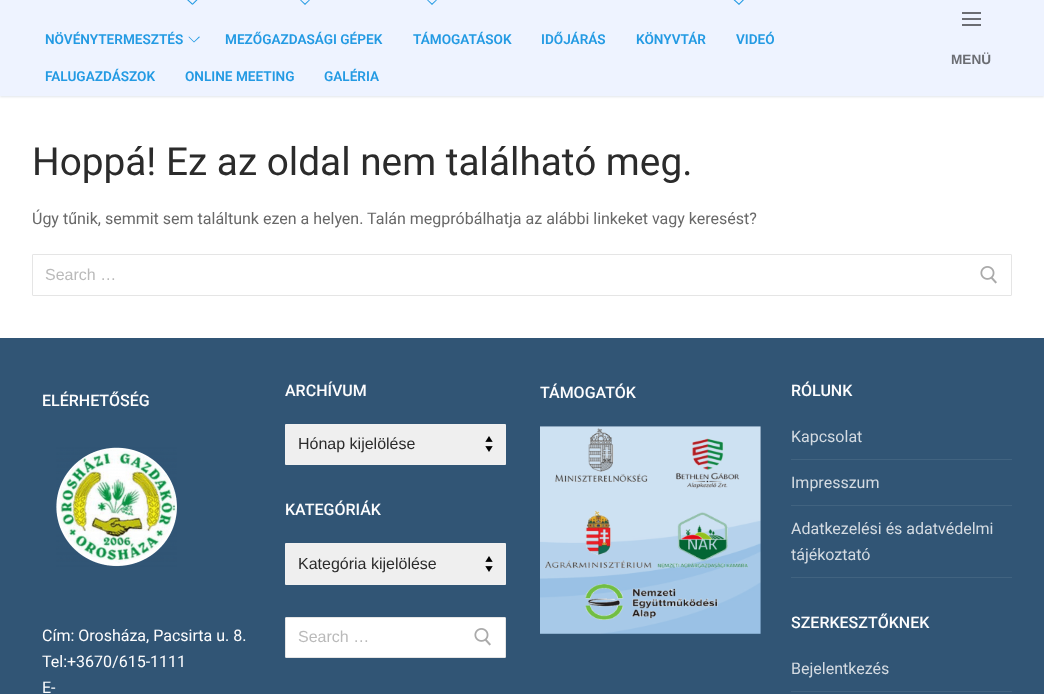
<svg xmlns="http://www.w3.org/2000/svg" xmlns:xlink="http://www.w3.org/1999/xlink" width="1044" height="694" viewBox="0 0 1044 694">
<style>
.cls-1{font:600 13.6px Roboto;fill:#239ae3}
.cls-2{font:bold 13.6px Liberation Sans;fill:#6b6d73}
.cls-3{font:38.75px Roboto;fill:#2b2b2b}
.cls-4{font:16px Roboto;fill:#686868}
.cls-5{font:16px Liberation Sans;fill:#bababa}
.cls-6{font:500 16px Roboto;fill:#fdfdfe}
.cls-7{font:16px Roboto;fill:#fdfdfe}
.cls-8{font:16px Liberation Sans;fill:#2b2b2b}
.cls-9{font:16px Roboto;fill:#d4dbe2}
</style>
<rect width="100%" height="100%" fill="#ffffff"/>
<rect fill="#e1e5ea" filter="blur(1px)" x="0" y="-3" width="1044" height="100"/>
<rect fill="#eef3ff" x="0" y="0" width="1044" height="96"/>
<path fill="#239ae3" d="M192.5 5L186.5-.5L187.5-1L192.5 3.5Z"/>
<path fill="#239ae3" d="M198-.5L192.5 5V3.5L197-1Z"/>
<path fill="#239ae3" d="M305 5L299.5-.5L300-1L305 3.5ZM310.5-.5L305 5V3.5L310-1Z"/>
<path fill="#239ae3" d="M432 5L426.5-.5L427-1L432 3.5ZM437.5-.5L432 5V3.5L437-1Z"/>
<path fill="#239ae3" d="M739 5L733-.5L734-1L739 3.5ZM744.5-.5L739 5V3.5L743.5-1Z"/>
<path fill="#239ae3" d="M194 42.5L188.5 37L189 36.5L194 41.5ZM200 37L194 42.5V41.5L199 36.5Z"/>
<rect fill="#6b6d73" x="962" y="18" width="19" height="2"/>
<rect fill="#6b6d73" x="962" y="12" width="19" height="2"/>
<rect fill="#6b6d73" x="962" y="24" width="19" height="2"/>
<rect fill="none" stroke="#e5e5e5" x="32.5" y="254.5" width="979" height="41" rx="0.5"/>
<image xlink:href="image0.png" x="980" y="266" width="17" height="18"/>
<rect fill="#315575" x="0" y="338" width="1044" height="356"/>
<image xlink:href="image1.png" x="56" y="447" width="121" height="120"/>
<rect fill="#efefef" x="285" y="424" width="221" height="41" rx="1"/>
<image xlink:href="image2.png" x="485" y="436" width="8" height="16"/>
<rect fill="none" stroke="#ffffff" stroke-opacity="0.08" x="285.5" y="424.5" width="220" height="40"/>
<rect fill="#efefef" x="285" y="543" width="221" height="42" rx="1"/>
<image xlink:href="image2.png" x="485" y="556" width="8" height="16"/>
<rect fill="none" stroke="#ffffff" stroke-opacity="0.08" x="285.5" y="543.5" width="220" height="41"/>
<rect fill="#ffffff" stroke="#e5e5e5" x="285.5" y="617.5" width="220" height="40" rx="0.5"/>
<image xlink:href="image0.png" x="474" y="628" width="17" height="18"/>
<image xlink:href="image3.png" x="540" y="426" width="221" height="208"/>
<rect fill="#416380" x="791" y="459" width="221" height="1"/>
<rect fill="#416380" x="791" y="505" width="221" height="1"/>
<rect fill="#416380" x="791" y="577" width="221" height="1"/>
<rect fill="#416380" x="791" y="691" width="221" height="1"/>
<text class="cls-1" x="45" y="44">NÖVÉNYTERMESZTÉS</text>
<text class="cls-1" x="225" y="44">MEZŐGAZDASÁGI GÉPEK</text>
<text class="cls-1" x="413" y="44">TÁMOGATÁSOK</text>
<text class="cls-1" x="541" y="44">IDŐJÁRÁS</text>
<text class="cls-1" x="636" y="44">KÖNYVTÁR</text>
<text class="cls-1" x="736" y="44">VIDEÓ</text>
<text class="cls-1" x="45" y="81">FALUGAZDÁSZOK</text>
<text class="cls-1" x="185" y="81">ONLINE MEETING</text>
<text class="cls-1" x="324" y="81">GALÉRIA</text>
<text class="cls-2" x="951" y="64">MENÜ</text>
<text class="cls-3" x="32" y="175">Hoppá! Ez az oldal nem található meg.</text>
<text class="cls-4" x="32" y="224">Úgy tűnik, semmit sem találtunk ezen a helyen. Talán megpróbálhatja az alábbi linkeket vagy keresést?</text>
<text class="cls-5" x="45" y="280">Search …</text>
<text class="cls-6" x="42" y="406">ELÉRHETŐSÉG</text>
<text class="cls-7"><tspan x="42" y="641">Cím: Orosháza, Pacsirta u. 8.</tspan><tspan x="42" y="667">Tel:+3670/615-1111</tspan><tspan x="42" y="693">E-</tspan></text>
<text class="cls-6" x="285" y="396">ARCHÍVUM</text>
<text class="cls-8" x="298" y="449">Hónap kijelölése</text>
<text class="cls-6" x="285" y="515">KATEGÓRIÁK</text>
<text class="cls-8" x="298" y="569">Kategória kijelölése</text>
<text class="cls-5" x="298" y="642">Search …</text>
<text class="cls-6" x="540" y="398">TÁMOGATÓK</text>
<text class="cls-6" x="791" y="396">RÓLUNK</text>
<text class="cls-9" x="791" y="442">Kapcsolat</text>
<text class="cls-9" x="791" y="488">Impresszum</text>
<text class="cls-9"><tspan x="791" y="534">Adatkezelési és adatvédelmi</tspan><tspan x="791" y="560">tájékoztató</tspan></text>
<text class="cls-6" x="791" y="628">SZERKESZTŐKNEK</text>
<text class="cls-9" x="791" y="674">Bejelentkezés</text>
</svg>
